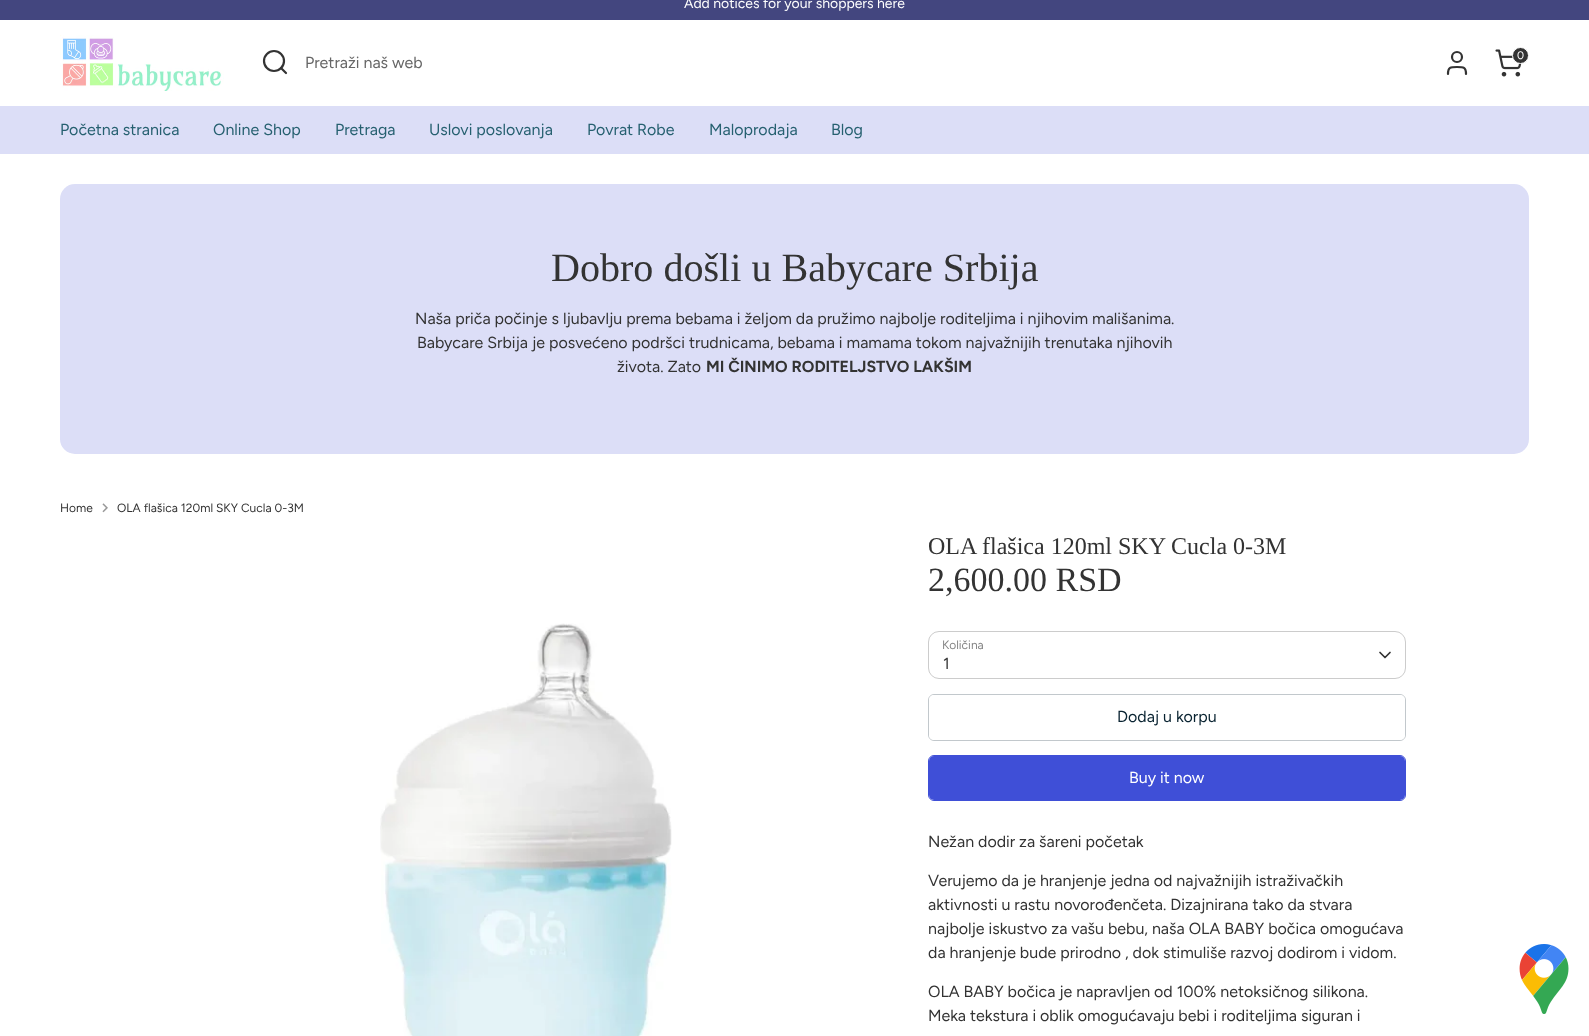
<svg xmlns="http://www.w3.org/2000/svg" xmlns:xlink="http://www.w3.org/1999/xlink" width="1589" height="1036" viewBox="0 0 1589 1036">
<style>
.cls-1{font:14px Figtree;fill:#ffffff}
.cls-2{font:16px Figtree;fill:#666666}
.cls-3{font:11px Figtree;fill:#ffffff}
.cls-4{font:16px Figtree;fill:#266070}
.cls-5{font:40.1px Liberation Serif;fill:#333333}
.cls-6{font:16px Figtree;fill:#333333}
.cls-7{font:bold 16px Figtree;fill:#333333}
.cls-8{font:12px Figtree;fill:#333333}
.cls-9{font:24px Liberation Serif;fill:#333333}
.cls-10{font:34px Liberation Serif;fill:#333333}
.cls-11{font:12px Figtree;fill:#858585}
.cls-12{font:16px Figtree;fill:#092331}
.cls-13{font:16px Figtree;fill:#ffffff}
</style>
<rect width="100%" height="100%" fill="#ffffff"/>
<rect fill="#43467f" x="0" y="0" width="1589" height="20"/>
<image xlink:href="image0.png" x="60" y="35" width="164" height="56"/>
<circle fill="none" stroke="#333333" stroke-width="2.2" cx="274" cy="61" r="10"/>
<path fill="none" stroke="#333333" stroke-width="2.2" stroke-linecap="round" stroke-linejoin="round" d="M286 73L281 68"/>
<path fill="none" stroke="#333333" stroke-width="2.2" stroke-linecap="round" stroke-linejoin="round" d="M1466 74C1466 67 1463.5 67 1457 67C1450.5 67 1448 67 1448 74"/>
<circle fill="none" stroke="#333333" stroke-width="2.2" cx="1457" cy="57" r="5"/>
<image xlink:href="image1.png" x="1495" y="49" width="27" height="28"/>
<circle fill="#333333" stroke="#ffffff" cx="1520.5" cy="55.5" r="8"/>
<rect fill="#dcdef7" x="0" y="106" width="1589" height="48"/>
<rect fill="#dcdef7" x="60" y="184" width="1469" height="270" rx="15"/>
<image xlink:href="image2.png" x="102" y="503" width="6" height="10"/>
<image xlink:href="image3.png" x="380" y="623" width="292" height="413"/>
<rect fill="none" stroke="#cccccc" x="928.5" y="631.5" width="477" height="47" rx="10.5"/>
<path fill="none" stroke="#333333" stroke-width="1.7" stroke-linecap="round" stroke-linejoin="round" d="M1380 652.5L1385 657.5L1390 652.5"/>
<rect fill="none" stroke="#c2c8cc" x="928.5" y="694.5" width="477" height="46" rx="5.5"/>
<rect fill="#ffffff" x="929" y="695" width="476" height="45" rx="5"/>
<rect fill="none" stroke="#3f4fd7" x="928.5" y="755.5" width="477" height="45" rx="5.5"/>
<rect fill="#3f4fd7" x="929" y="756" width="476" height="44" rx="5"/>
<image xlink:href="image4.png" x="1519" y="944" width="50" height="70"/>
<text class="cls-1" x="684" y="8">Add notices for your shoppers here</text>
<text class="cls-2" x="305" y="68">Pretraži naš web</text>
<text class="cls-3" x="1517" y="59">0</text>
<text class="cls-4" x="60" y="135">Početna stranica</text>
<text class="cls-4" x="213" y="135">Online Shop</text>
<text class="cls-4" x="335" y="135">Pretraga</text>
<text class="cls-4" x="429" y="135">Uslovi poslovanja</text>
<text class="cls-4" x="587" y="135">Povrat Robe</text>
<text class="cls-4" x="709" y="135">Maloprodaja</text>
<text class="cls-4" x="831" y="135">Blog</text>
<text class="cls-5" x="551" y="281">Dobro došli u Babycare Srbija</text>
<text class="cls-6" x="415" y="324">Naša priča počinje s ljubavlju prema bebama i željom da pružimo najbolje roditeljima i njihovim mališanima.</text>
<text class="cls-6" x="417" y="348">Babycare Srbija je posvećeno podršci trudnicama, bebama i mamama tokom najvažnijih trenutaka njihovih</text>
<text class="cls-6" x="617" y="372">života. Zato</text>
<text class="cls-7" x="706" y="372">MI ČINIMO RODITELJSTVO LAKŠIM</text>
<text class="cls-8" x="60" y="512">Home</text>
<text class="cls-8" x="117" y="512">OLA flašica 120ml SKY Cucla 0-3M</text>
<text class="cls-9" x="928" y="554">OLA flašica 120ml SKY Cucla 0-3M</text>
<text class="cls-10" x="928" y="591">2,600.00 RSD</text>
<text class="cls-11" x="942" y="649">Količina</text>
<text class="cls-6" x="943" y="669">1</text>
<text class="cls-12" x="1117" y="722">Dodaj u korpu</text>
<text class="cls-13" x="1129" y="783">Buy it now</text>
<text class="cls-6" x="928" y="847">Nežan dodir za šareni početak</text>
<text class="cls-6"><tspan x="928" y="886">Verujemo da je hranjenje jedna od najvažnijih istraživačkih</tspan><tspan x="928" y="910">aktivnosti u rastu novorođenčeta. Dizajnirana tako da stvara</tspan><tspan x="928" y="934">najbolje iskustvo za vašu bebu, naša OLA BABY bočica omogućava</tspan><tspan x="928" y="958">da hranjenje bude prirodno , dok stimuliše razvoj dodirom i vidom.</tspan></text>
<text class="cls-6"><tspan x="928" y="997">OLA BABY bočica je napravljen od 100% netoksičnog silikona.</tspan><tspan x="928" y="1021">Meka tekstura i oblik omogućavaju bebi i roditeljima siguran i</tspan></text>
</svg>
